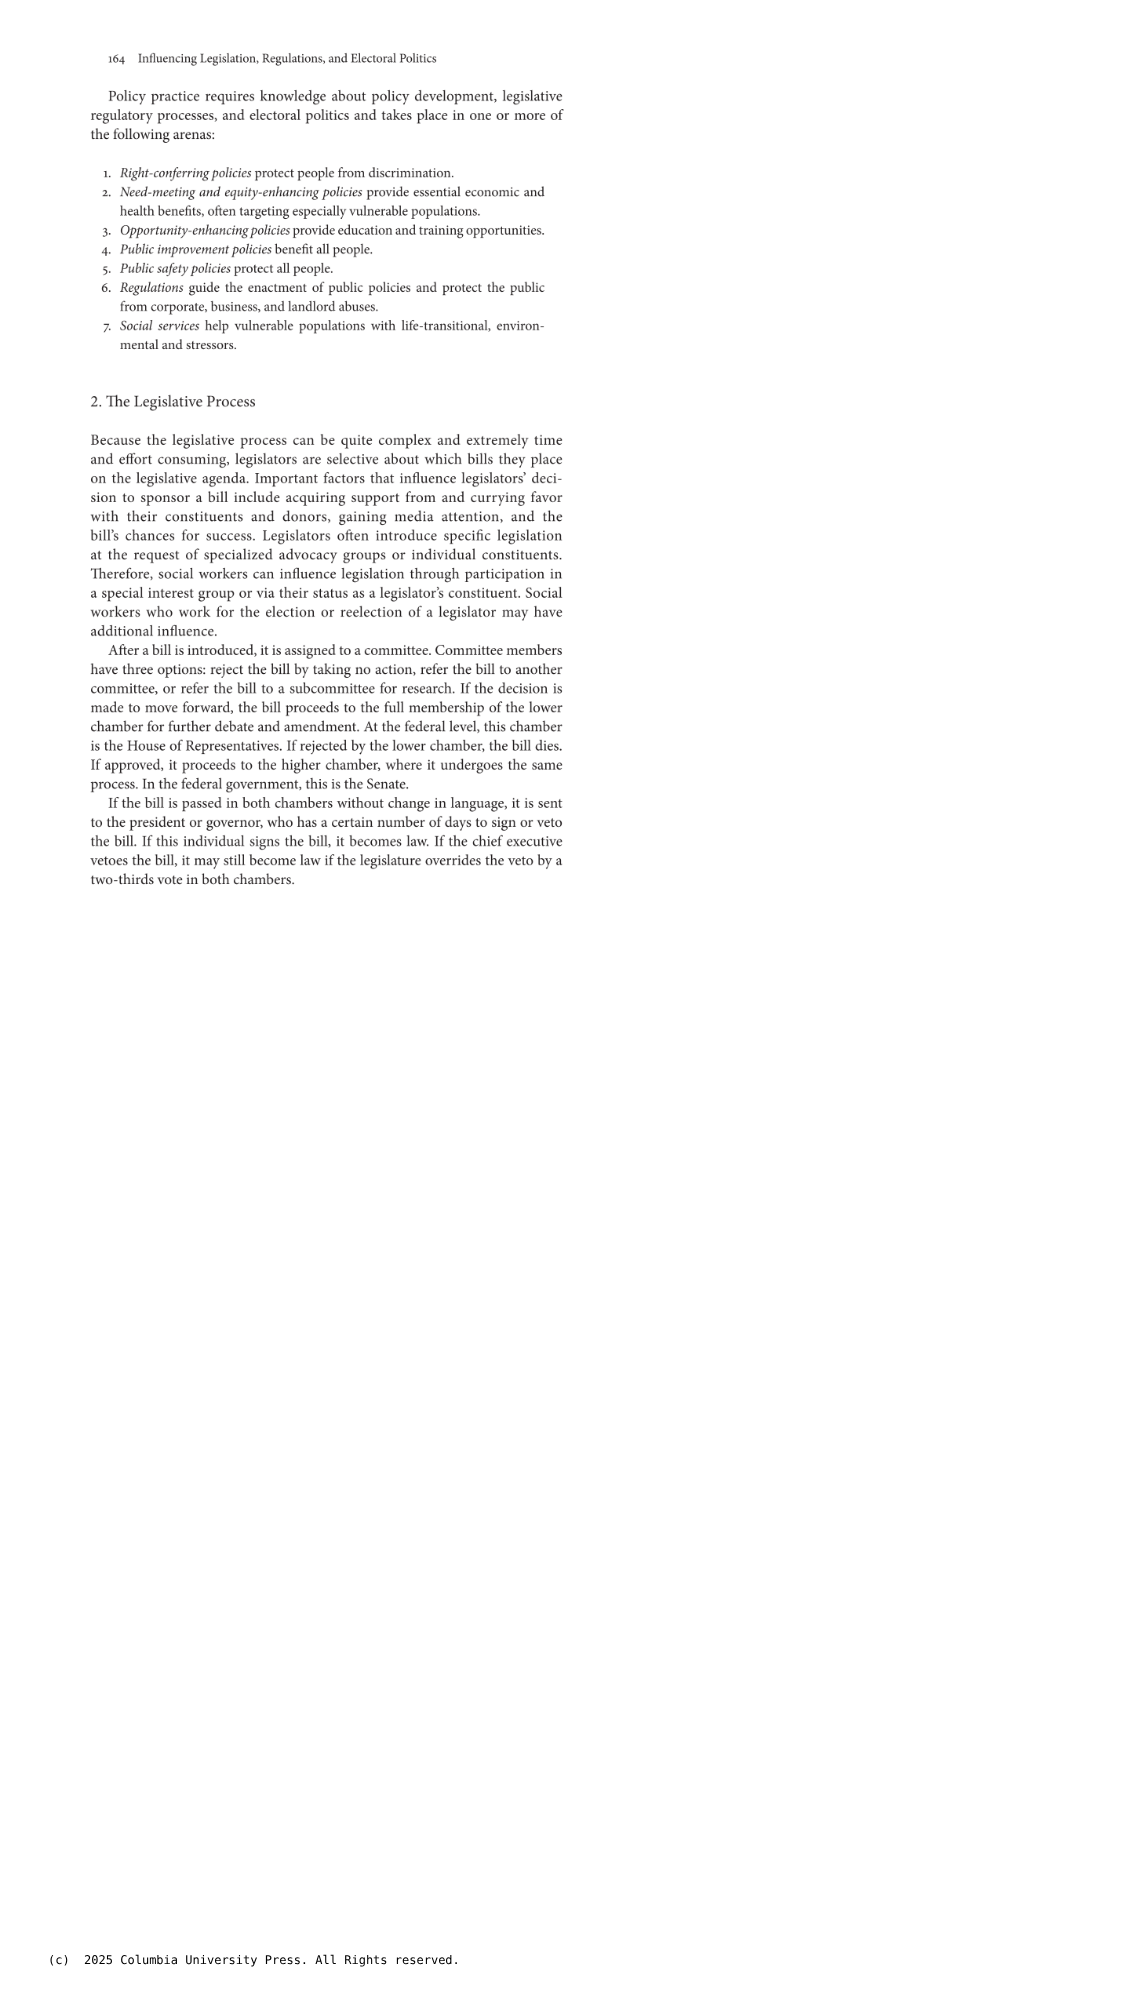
<svg xmlns="http://www.w3.org/2000/svg" xmlns:xlink="http://www.w3.org/1999/xlink" width="1148" height="1991" viewBox="0 0 1148 1991">
<style>
.cls-1{font:12px DejaVu Sans Mono;fill:#000000}
</style>
<rect width="100%" height="100%" fill="#ffffff"/>
<image xlink:href="image0.png" x="90" y="52" width="474" height="833"/>
<text class="cls-1" xml:space="preserve" x="48" y="1964">(c)  2025 Columbia University Press. All Rights reserved.</text>
</svg>
